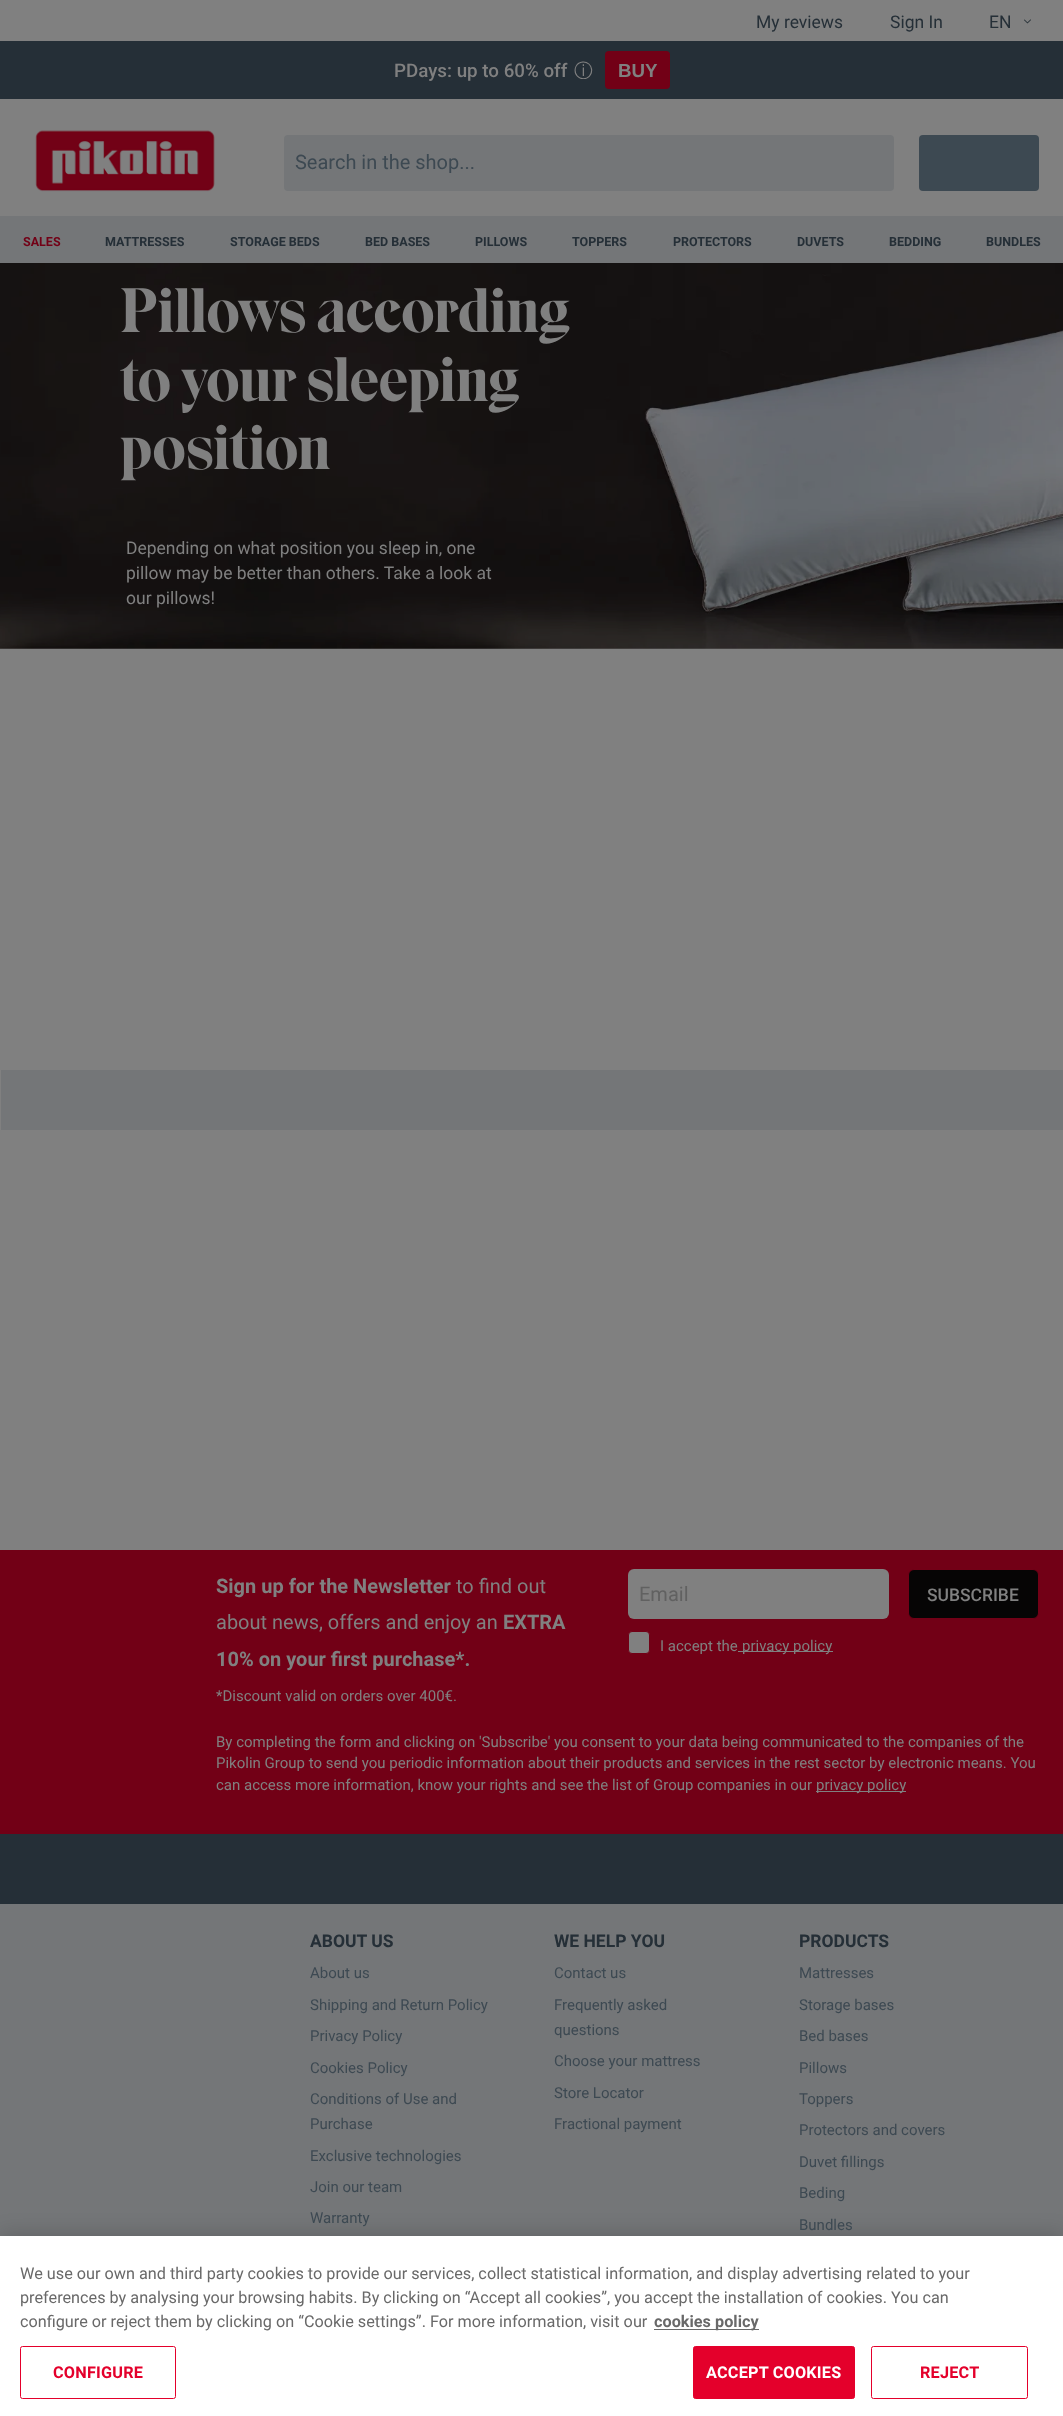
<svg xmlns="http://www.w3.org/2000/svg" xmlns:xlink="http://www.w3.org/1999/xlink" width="1063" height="2416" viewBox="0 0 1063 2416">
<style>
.cls-1{font:17.5px Roboto;fill:#252f37}
.cls-2{font:500 18.75px Roboto;fill:#808080}
.cls-3{font:500 18.75px WenQuanYi Zen Hei;fill:#808080}
.cls-4{font:bold 18.75px Liberation Sans;fill:#808080}
.cls-5{font:20px Roboto;fill:#3d4952}
.cls-6{font:bold 12.5px Roboto;fill:#720016}
.cls-7{font:bold 12.5px Roboto;fill:#252f37}
.cls-8{font:300 62.5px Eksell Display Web;fill:#808080}
.cls-9{font:17.5px Roboto;fill:#808080}
.cls-10{font:bold 20px Roboto;fill:#808080}
.cls-11{font:20px Roboto;fill:#808080}
.cls-12{font:15px Roboto;fill:#808080}
.cls-13{font:20px Roboto;fill:#616161}
.cls-14{font:500 17.5px Roboto;fill:#808080}
.cls-15{font:bold 17.5px Roboto;fill:#252f37}
.cls-16{font:15px Roboto;fill:#3d4952}
.cls-17{font:16.25px Roboto;fill:#696969}
.cls-18{font:bold 16.25px Roboto;fill:#696969}
.cls-19{font:bold 16.25px Roboto;letter-spacing:0.2px;fill:#e4002b}
.cls-20{font:bold 16.25px Roboto;letter-spacing:0.2px;fill:#ffffff}
</style>
<rect width="100%" height="100%" fill="#808080"/>
<image xlink:href="image0.png" x="1024" y="19" width="7" height="5"/>
<rect fill="#252f37" x="0" y="41" width="1063" height="58"/>
<rect fill="#720016" x="605" y="51" width="65" height="38" rx="4"/>
<image xlink:href="image1.png" x="35" y="130" width="180" height="62"/>
<rect fill="#747678" x="284" y="135" width="610" height="56" rx="4"/>
<rect fill="#3d4952" x="919" y="135" width="120" height="56" rx="4"/>
<rect fill="#747678" x="0" y="216" width="1063" height="47"/>
<image xlink:href="image2.png" x="0" y="263" width="1063" height="386"/>
<rect fill="#747678" x="1" y="1070" width="1062" height="60"/>
<rect fill="#747678" x="0" y="1904" width="1063" height="332"/>
<rect fill="#720016" x="0" y="1550" width="1063" height="284"/>
<rect fill="#808080" x="628" y="1569" width="261" height="50" rx="6"/>
<rect fill="#808080" stroke="#720016" x="628.5" y="1631.5" width="21" height="22" rx="3.5"/>
<rect fill="#808080" x="738" y="1651" width="95" height="1"/>
<rect fill="#060505" stroke="#720016" x="908.5" y="1569.5" width="130" height="49" rx="5.5"/>
<rect fill="#808080" x="816" y="1791" width="90" height="1"/>
<rect fill="#252f37" x="0" y="1834" width="1063" height="70"/>
<rect fill="#000000" fill-opacity="0.2" filter="blur(11px)" x="0" y="2236" width="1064" height="180"/>
<rect fill="#ffffff" x="0" y="2236" width="1063" height="180"/>
<rect fill="#696969" x="654" y="2329" width="105" height="1"/>
<rect fill="none" stroke="#e4002b" x="20.5" y="2346.5" width="155" height="52" rx="2"/>
<rect fill="#e4002b" stroke="#e4002b" x="693.5" y="2346.5" width="161" height="52" rx="2"/>
<rect fill="none" stroke="#e4002b" x="871.5" y="2346.5" width="156" height="52" rx="2"/>
<text class="cls-1" x="756" y="28">My reviews</text>
<text class="cls-1" x="890" y="28">Sign In</text>
<text class="cls-1" x="989" y="28">EN</text>
<text class="cls-2" x="394" y="77">PDays: up to 60% off</text>
<text class="cls-3" x="574" y="77">ⓘ</text>
<text class="cls-4" x="618" y="77">BUY</text>
<text class="cls-5" x="295" y="169">Search in the shop...</text>
<text class="cls-6" x="23" y="246">SALES</text>
<text class="cls-7" x="105" y="246">MATTRESSES</text>
<text class="cls-7" x="230" y="246">STORAGE BEDS</text>
<text class="cls-7" x="365" y="246">BED BASES</text>
<text class="cls-7" x="475" y="246">PILLOWS</text>
<text class="cls-7" x="572" y="246">TOPPERS</text>
<text class="cls-7" x="673" y="246">PROTECTORS</text>
<text class="cls-7" x="797" y="246">DUVETS</text>
<text class="cls-7" x="889" y="246">BEDDING</text>
<text class="cls-7" x="986" y="246">BUNDLES</text>
<text class="cls-8"><tspan x="120" y="332">Pillows according</tspan><tspan x="120" y="401">to your sleeping</tspan><tspan x="120" y="469">position</tspan></text>
<text class="cls-9"><tspan x="126" y="554">Depending on what position you sleep in, one</tspan><tspan x="126" y="579">pillow may be better than others. Take a look at</tspan><tspan x="126" y="604">our pillows!</tspan></text>
<text class="cls-10" x="216" y="1593">Sign up for the Newsletter</text>
<text class="cls-11" x="456" y="1593">to find out</text>
<text class="cls-11" x="216" y="1629">about news, offers and enjoy an</text>
<text class="cls-10" x="503" y="1629">EXTRA</text>
<text class="cls-10" x="216" y="1666">10% on your first purchase*.</text>
<text class="cls-12" x="216" y="1701">*Discount valid on orders over 400€.</text>
<text class="cls-13" x="639" y="1601">Email</text>
<text class="cls-12" x="660" y="1651">I accept the</text>
<text class="cls-12" x="742" y="1651">privacy policy</text>
<text class="cls-14" x="927" y="1601">SUBSCRIBE</text>
<text class="cls-12"><tspan x="216" y="1747">By completing the form and clicking on 'Subscribe' you consent to your data being communicated to the companies of the</tspan><tspan x="216" y="1768">Pikolin Group to send you periodic information about their products and services in the rest sector by electronic means. You</tspan><tspan x="216" y="1790">can access more information, know your rights and see the list of Group companies in our</tspan></text>
<text class="cls-12" x="816" y="1790">privacy policy</text>
<text class="cls-15" x="310" y="1947">ABOUT US</text>
<text class="cls-16" x="310" y="1978">About us</text>
<text class="cls-16" x="310" y="2010">Shipping and Return Policy</text>
<text class="cls-16" x="310" y="2041">Privacy Policy</text>
<text class="cls-16" x="310" y="2073">Cookies Policy</text>
<text class="cls-16"><tspan x="310" y="2104">Conditions of Use and</tspan><tspan x="310" y="2129">Purchase</tspan></text>
<text class="cls-16" x="310" y="2161">Exclusive technologies</text>
<text class="cls-16" x="310" y="2192">Join our team</text>
<text class="cls-16" x="310" y="2223">Warranty</text>
<text class="cls-15" x="554" y="1947">WE HELP YOU</text>
<text class="cls-16" x="554" y="1978">Contact us</text>
<text class="cls-16"><tspan x="554" y="2010">Frequently asked</tspan><tspan x="554" y="2035">questions</tspan></text>
<text class="cls-16" x="554" y="2066">Choose your mattress</text>
<text class="cls-16" x="554" y="2098">Store Locator</text>
<text class="cls-16" x="554" y="2129">Fractional payment</text>
<text class="cls-15" x="799" y="1947">PRODUCTS</text>
<text class="cls-16" x="799" y="1978">Mattresses</text>
<text class="cls-16" x="799" y="2010">Storage bases</text>
<text class="cls-16" x="799" y="2041">Bed bases</text>
<text class="cls-16" x="799" y="2073">Pillows</text>
<text class="cls-16" x="799" y="2104">Toppers</text>
<text class="cls-16" x="799" y="2135">Protectors and covers</text>
<text class="cls-16" x="799" y="2167">Duvet fillings</text>
<text class="cls-16" x="799" y="2198">Beding</text>
<text class="cls-16" x="799" y="2230">Bundles</text>
<text class="cls-17"><tspan x="20" y="2279">We use our own and third party cookies to provide our services, collect statistical information, and display advertising related to your</tspan><tspan x="20" y="2303">preferences by analysing your browsing habits. By clicking on “Accept all cookies”, you accept the installation of cookies. You can</tspan><tspan x="20" y="2327">configure or reject them by clicking on “Cookie settings”. For more information, visit our</tspan></text>
<text class="cls-18" x="654" y="2327">cookies policy</text>
<text class="cls-19" x="53" y="2378">CONFIGURE</text>
<text class="cls-20" x="706" y="2378">ACCEPT COOKIES</text>
<text class="cls-19" x="920" y="2378">REJECT</text>
</svg>
